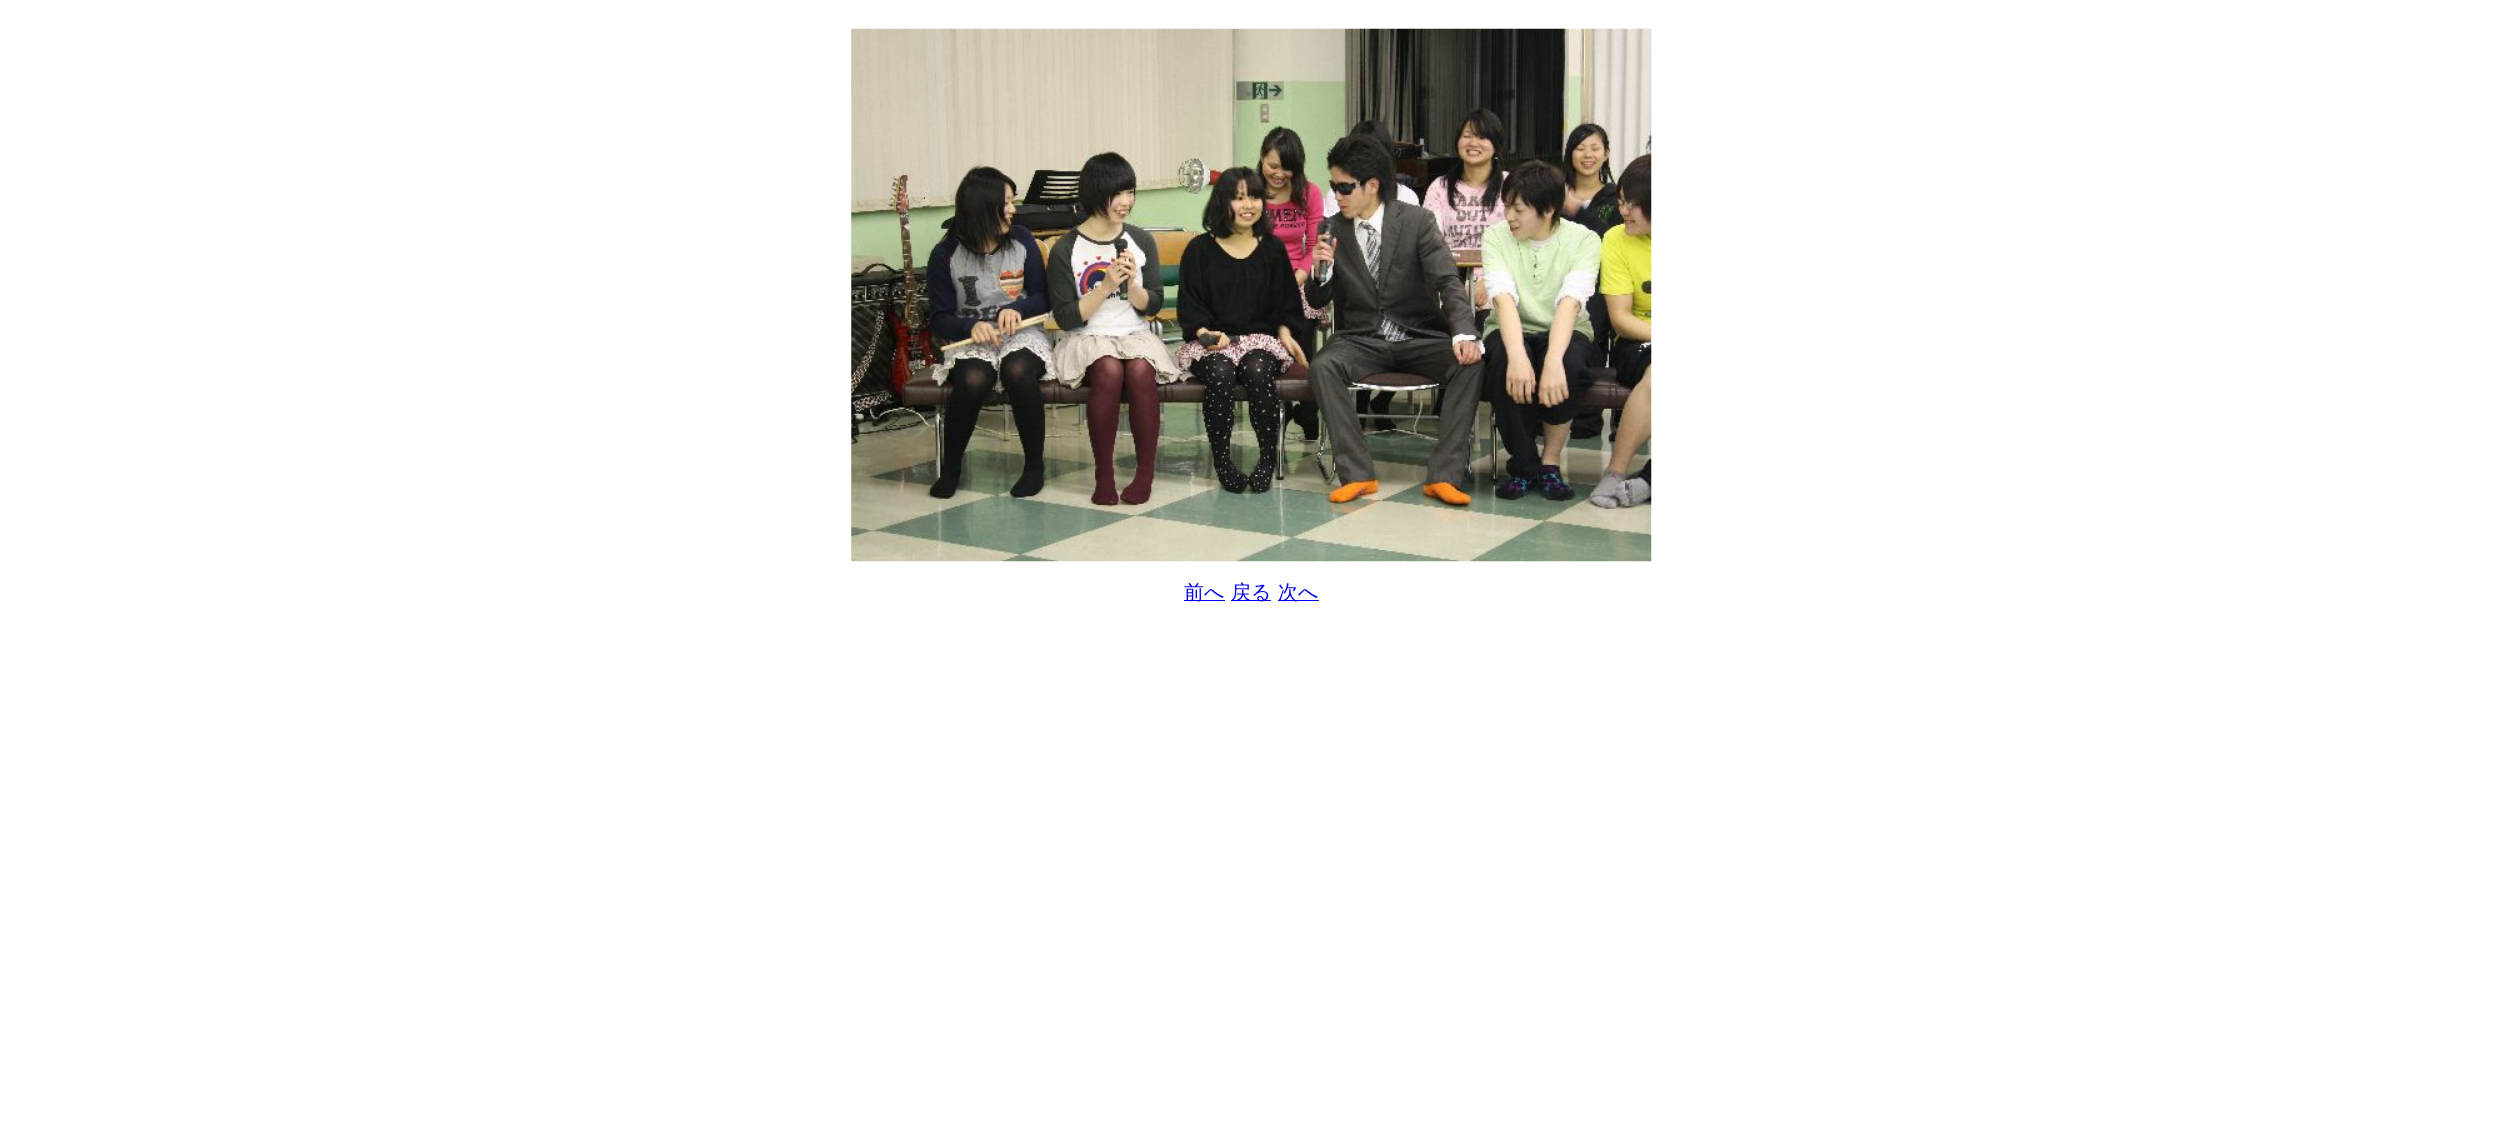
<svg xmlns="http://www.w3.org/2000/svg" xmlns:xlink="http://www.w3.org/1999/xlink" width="2502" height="1133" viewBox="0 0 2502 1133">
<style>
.cls-1{font:500 20px WenQuanYi Zen Hei;fill:#0000ee}
</style>
<rect width="100%" height="100%" fill="#ffffff"/>
<image xlink:href="image0.png" x="851" y="28" width="801" height="534"/>
<rect fill="#0000ee" x="1184" y="600" width="41" height="1"/>
<rect fill="#0000ee" x="1231" y="600" width="40" height="1"/>
<rect fill="#0000ee" x="1278" y="600" width="41" height="1"/>
<text class="cls-1" x="1184" y="599">前へ</text>
<text class="cls-1" x="1231" y="599">戻る</text>
<text class="cls-1" x="1278" y="599">次へ</text>
</svg>
